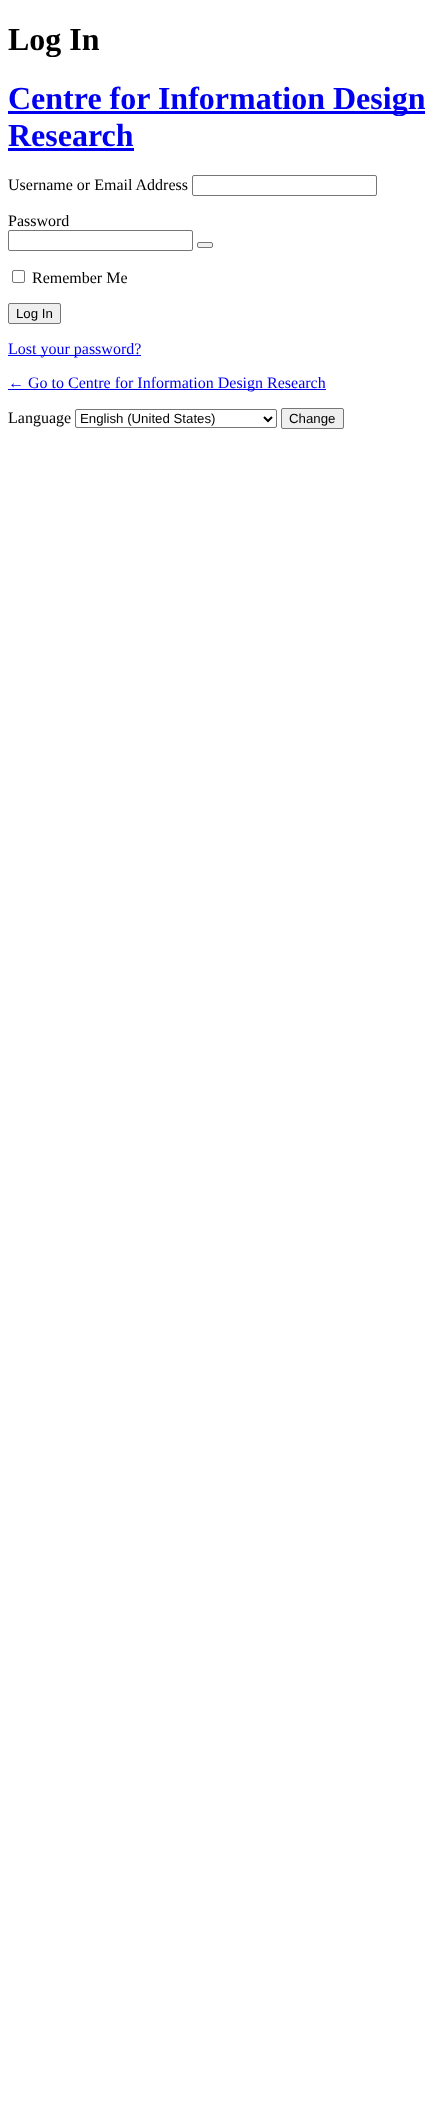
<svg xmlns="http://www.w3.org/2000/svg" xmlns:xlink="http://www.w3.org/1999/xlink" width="445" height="2113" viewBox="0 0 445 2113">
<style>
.cls-1{font:bold 32px Liberation Serif;fill:#000000}
.cls-2{font:bold 32px Liberation Serif;fill:#0000ee}
.cls-3{font:16px Liberation Serif;fill:#000000}
.cls-4{font:13.25px Liberation Sans;fill:#000000}
.cls-5{font:16px Liberation Serif;fill:#0000ee}
</style>
<rect width="100%" height="100%" fill="#ffffff"/>
<rect fill="#0000ee" x="8" y="111" width="417" height="3"/>
<rect fill="#0000ee" x="8" y="148" width="126" height="3"/>
<rect fill="none" stroke="#767676" x="192.5" y="175.5" width="184" height="20" rx="1.5"/>
<rect fill="none" stroke="#767676" x="8.5" y="230.5" width="184" height="20" rx="1.5"/>
<rect fill="#efefef" stroke="#767676" x="197.5" y="242.5" width="15" height="5" rx="1.5"/>
<rect fill="none" stroke="#767676" x="12.5" y="270.5" width="12" height="12" rx="1.5"/>
<rect fill="#efefef" stroke="#767676" x="8.5" y="303.5" width="52" height="20" rx="1.5"/>
<rect fill="#0000ee" x="8" y="355" width="133" height="1"/>
<rect fill="#0000ee" x="8" y="389" width="318" height="1"/>
<rect fill="none" stroke="#767676" x="75.5" y="409.5" width="201" height="18" rx="1.5"/>
<path fill="none" stroke="#000000" stroke-width="2" d="M264 417L268 421L272 417"/>
<rect fill="#efefef" stroke="#767676" x="281.5" y="408.5" width="62" height="20" rx="1.5"/>
<text class="cls-1" x="8" y="50">Log In</text>
<text class="cls-2"><tspan x="8" y="109">Centre for Information Design</tspan><tspan x="8" y="146">Research</tspan></text>
<text class="cls-3" x="8" y="190">Username or Email Address</text>
<text class="cls-3" x="8" y="226">Password</text>
<text class="cls-3" x="32" y="283">Remember Me</text>
<text class="cls-4" x="16" y="318">Log In</text>
<text class="cls-5" x="8" y="354">Lost your password?</text>
<text class="cls-5" x="8" y="388">← Go to Centre for Information Design Research</text>
<text class="cls-3" x="8" y="423">Language</text>
<text class="cls-4" x="80" y="423">English (United States)</text>
<text class="cls-4" x="289" y="423">Change</text>
</svg>
